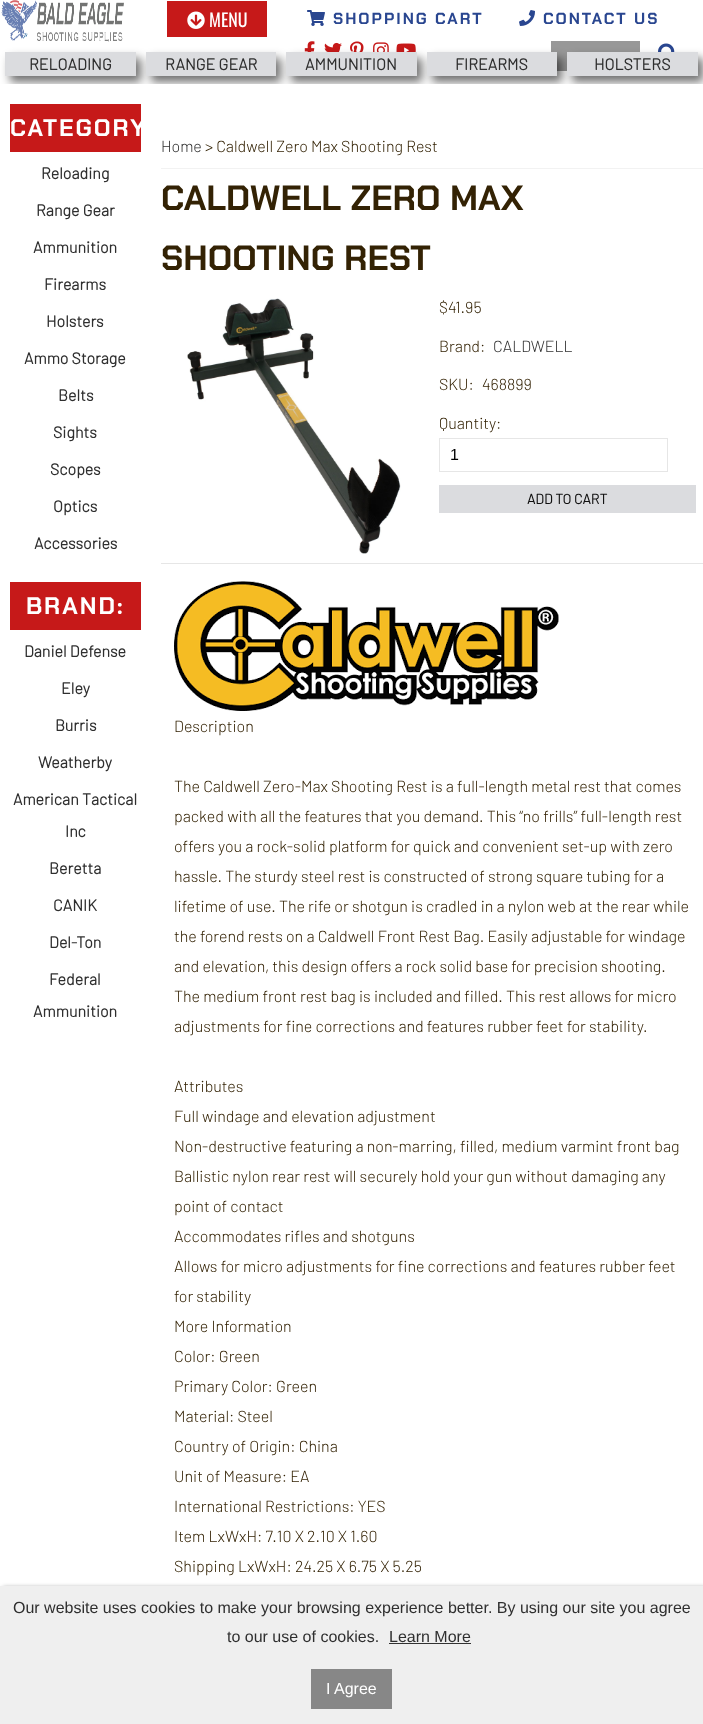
<svg xmlns="http://www.w3.org/2000/svg" xmlns:xlink="http://www.w3.org/1999/xlink" width="703" height="1724" viewBox="0 0 703 1724">
<style>
.cls-1{font:18px Oswald;fill:#ffffff}
.cls-2{font:bold 16px Chakra Petch;letter-spacing:2px;fill:#294690}
.cls-3{font:bold 16px Barlow;fill:#2f2f2f}
.cls-4{font:bold 24px Chakra Petch;letter-spacing:2px;fill:#ffffff}
.cls-5{font:300 16px Barlow;fill:#2f2f2f}
.cls-6{font:300 16px Barlow;fill:#332204}
.cls-7{font:bold 35px Chakra Petch;fill:#332204}
.cls-8{font:16px Liberation Sans;fill:#000000}
.cls-9{font:bold 14px Barlow;fill:#101010}
.cls-10{font:16px Liberation Sans;fill:#2f2f2f}
.cls-11{font:16px Liberation Sans;fill:#ffffff}
</style>
<defs>
<clipPath id="clip1"><rect x="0" y="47" width="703" height="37"/></clipPath>
</defs>
<rect width="100%" height="100%" fill="#ffffff"/>
<image xlink:href="image0.png" x="1" y="0" width="123" height="42"/>
<rect fill="#c61919" x="167" y="1" width="100" height="36"/>
<image xlink:href="image1.png" x="187" y="11" width="18" height="18"/>
<image xlink:href="image2.png" x="307" y="10" width="18" height="16"/>
<image xlink:href="image3.png" x="519" y="10" width="16" height="16"/>
<image xlink:href="image4.png" x="304" y="41" width="11" height="11"/>
<image xlink:href="image5.png" x="324" y="42" width="18" height="10"/>
<image xlink:href="image6.png" x="350" y="41" width="14" height="11"/>
<image xlink:href="image7.png" x="373" y="42" width="16" height="10"/>
<image xlink:href="image8.png" x="396" y="43" width="20" height="9"/>
<rect fill="#989898" x="551" y="41" width="89" height="30"/>
<image xlink:href="image9.png" x="658" y="43" width="17" height="9"/>
<g clip-path="url(#clip1)">
<rect fill="#000000" fill-opacity="0.56" filter="blur(5px)" x="10" y="58" width="131" height="24"/>
</g>
<rect fill="#dbdcdf" x="5" y="52" width="131" height="24"/>
<g clip-path="url(#clip1)">
<rect fill="#000000" fill-opacity="0.56" filter="blur(5px)" x="151" y="58" width="130" height="24"/>
</g>
<rect fill="#dbdcdf" x="146" y="52" width="130" height="24"/>
<g clip-path="url(#clip1)">
<rect fill="#000000" fill-opacity="0.56" filter="blur(5px)" x="291" y="58" width="131" height="24"/>
</g>
<rect fill="#dbdcdf" x="286" y="52" width="131" height="24"/>
<g clip-path="url(#clip1)">
<rect fill="#000000" fill-opacity="0.56" filter="blur(5px)" x="432" y="58" width="130" height="24"/>
</g>
<rect fill="#dbdcdf" x="427" y="52" width="130" height="24"/>
<g clip-path="url(#clip1)">
<rect fill="#000000" fill-opacity="0.56" filter="blur(5px)" x="572" y="58" width="131" height="24"/>
</g>
<rect fill="#dbdcdf" x="567" y="52" width="131" height="24"/>
<rect fill="#c61919" x="10" y="104" width="131" height="48"/>
<rect fill="#c61919" x="10" y="582" width="131" height="48"/>
<rect fill="#f2f2f2" x="161" y="168" width="542" height="1"/>
<image xlink:href="image10.png" x="187" y="298" width="214" height="256"/>
<rect fill="none" stroke="#e6e6e6" x="439.5" y="438.5" width="228" height="33"/>
<rect fill="#dbdcdf" x="439" y="485" width="257" height="28"/>
<rect fill="#e6e6e6" x="161" y="563" width="542" height="1"/>
<image xlink:href="image11.png" x="174" y="581" width="385" height="130"/>
<rect fill="#000000" fill-opacity="0.6" filter="blur(2.5px)" x="3" y="1588" width="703" height="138"/>
<rect fill="#efefef" x="0" y="1586" width="703" height="138"/>
<rect fill="#323232" x="389" y="1643" width="82" height="1"/>
<rect fill="#878787" x="311" y="1669" width="81" height="40"/>
<text class="cls-1" x="209" y="27">MENU</text>
<text class="cls-2" x="333" y="24">SHOPPING CART</text>
<text class="cls-2" x="543" y="24">CONTACT US</text>
<text class="cls-3" x="29" y="70">RELOADING</text>
<text class="cls-3" x="165" y="70">RANGE GEAR</text>
<text class="cls-3" x="305" y="70">AMMUNITION</text>
<text class="cls-3" x="455" y="70">FIREARMS</text>
<text class="cls-3" x="594" y="70">HOLSTERS</text>
<text class="cls-4" x="10" y="136">CATEGORY</text>
<text class="cls-3" x="41" y="179">Reloading</text>
<text class="cls-3" x="36" y="216">Range Gear</text>
<text class="cls-3" x="33" y="253">Ammunition</text>
<text class="cls-3" x="44" y="290">Firearms</text>
<text class="cls-3" x="46" y="327">Holsters</text>
<text class="cls-3" x="24" y="364">Ammo Storage</text>
<text class="cls-3" x="58" y="401">Belts</text>
<text class="cls-3" x="53" y="438">Sights</text>
<text class="cls-3" x="50" y="475">Scopes</text>
<text class="cls-3" x="53" y="512">Optics</text>
<text class="cls-3" x="34" y="549">Accessories</text>
<text class="cls-4" x="26" y="614">BRAND:</text>
<text class="cls-3" x="24" y="657">Daniel Defense</text>
<text class="cls-3" x="61" y="694">Eley</text>
<text class="cls-3" x="55" y="731">Burris</text>
<text class="cls-3" x="38" y="768">Weatherby</text>
<text class="cls-3" x="13" y="805">American Tactical</text>
<text class="cls-3" x="65" y="837">Inc</text>
<text class="cls-3" x="49" y="874">Beretta</text>
<text class="cls-3" x="53" y="911">CANIK</text>
<text class="cls-3" x="49" y="948">Del-Ton</text>
<text class="cls-3" x="49" y="985">Federal</text>
<text class="cls-3" x="33" y="1017">Ammunition</text>
<text class="cls-5" x="161" y="152">Home</text>
<text class="cls-6" x="205" y="152">&gt; Caldwell Zero Max Shooting Rest</text>
<text class="cls-7"><tspan x="161" y="210">CALDWELL ZERO MAX</tspan><tspan x="161" y="270">SHOOTING REST</tspan></text>
<text class="cls-6" x="439" y="313">$41.95</text>
<text class="cls-6" x="439" y="352">Brand:</text>
<text class="cls-5" x="493" y="352">CALDWELL</text>
<text class="cls-6" x="439" y="390">SKU:</text>
<text class="cls-6" x="482" y="390">468899</text>
<text class="cls-6" x="439" y="429">Quantity:</text>
<text class="cls-8" x="450" y="460">1</text>
<text class="cls-9" x="527" y="504">ADD TO CART</text>
<text class="cls-6" x="174" y="732">Description</text>
<text class="cls-6"><tspan x="174" y="792">The Caldwell Zero-Max Shooting Rest is a full-length metal rest that comes</tspan><tspan x="174" y="822">packed with all the features that you demand. This “no frills” full-length rest</tspan><tspan x="174" y="852">offers you a rock-solid platform for quick and convenient set-up with zero</tspan><tspan x="174" y="882">hassle. The sturdy steel rest is constructed of strong square tubing for a</tspan><tspan x="174" y="912">lifetime of use. The rife or shotgun is cradled in a nylon web at the rear while</tspan><tspan x="174" y="942">the forend rests on a Caldwell Front Rest Bag. Easily adjustable for windage</tspan><tspan x="174" y="972">and elevation, this design offers a rock solid base for precision shooting.</tspan><tspan x="174" y="1002">The medium front rest bag is included and filled. This rest allows for micro</tspan><tspan x="174" y="1032">adjustments for fine corrections and features rubber feet for stability.</tspan></text>
<text class="cls-6"><tspan x="174" y="1092">Attributes</tspan><tspan x="174" y="1122">Full windage and elevation adjustment</tspan><tspan x="174" y="1152">Non-destructive featuring a non-marring, filled, medium varmint front bag</tspan><tspan x="174" y="1182">Ballistic nylon rear rest will securely hold your gun without damaging any</tspan><tspan x="174" y="1212">point of contact</tspan><tspan x="174" y="1242">Accommodates rifles and shotguns</tspan><tspan x="174" y="1272">Allows for micro adjustments for fine corrections and features rubber feet</tspan><tspan x="174" y="1302">for stability</tspan><tspan x="174" y="1332">More Information</tspan><tspan x="174" y="1362">Color: Green</tspan><tspan x="174" y="1392">Primary Color: Green</tspan><tspan x="174" y="1422">Material: Steel</tspan><tspan x="174" y="1452">Country of Origin: China</tspan><tspan x="174" y="1482">Unit of Measure: EA</tspan><tspan x="174" y="1512">International Restrictions: YES</tspan><tspan x="174" y="1542">Item LxWxH: 7.10 X 2.10 X 1.60</tspan><tspan x="174" y="1572">Shipping LxWxH: 24.25 X 6.75 X 5.25</tspan></text>
<text class="cls-10" x="13" y="1613">Our website uses cookies to make your browsing experience better. By using our site you agree</text>
<text class="cls-10" x="227" y="1642">to our use of cookies.</text>
<text class="cls-10" x="389" y="1642">Learn More</text>
<text class="cls-11" x="326" y="1694">I Agree</text>
</svg>
